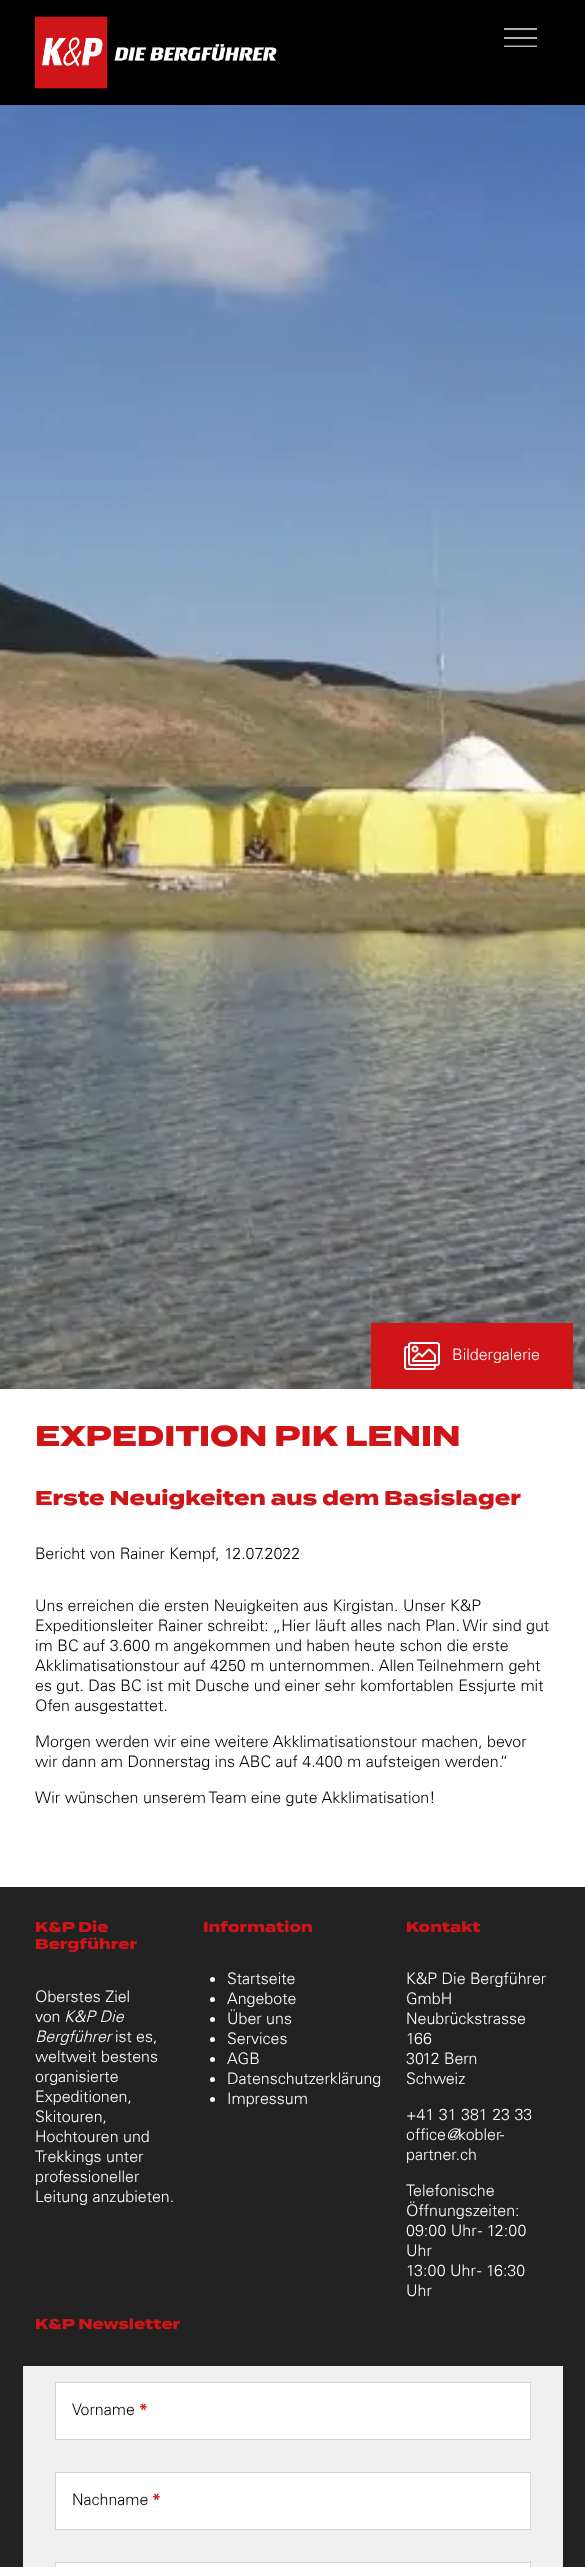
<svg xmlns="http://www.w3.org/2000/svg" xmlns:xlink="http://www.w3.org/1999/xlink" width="585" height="2567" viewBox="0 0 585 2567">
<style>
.cls-1{font:300 16px Proxima Nova;fill:#ffffff}
.cls-2{font:800 28.6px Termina;fill:#d01519}
.cls-3{font:800 20px Termina;fill:#d01519}
.cls-4{font:300 16px Proxima Nova;fill:#000000}
.cls-5{font:800 14.4px Termina;fill:#d01519}
.cls-6{font:italic 300 16px Proxima Nova;fill:#ffffff}
.cls-7{font:bold 16px Proxima Nova;fill:#d01519}
</style>
<defs>
<clipPath id="clip1"><rect x="504" y="28" width="34" height="19"/></clipPath>
</defs>
<rect width="100%" height="100%" fill="#ffffff"/>
<rect fill="#000000" x="0" y="0" width="585" height="105"/>
<image xlink:href="image0.png" x="34" y="16" width="243" height="73"/>
<rect fill="#b5b3b1" x="504" y="28" width="33" height="2"/>
<rect fill="#b5b3b1" x="504" y="37" width="33" height="2"/>
<g clip-path="url(#clip1)">
<path fill="none" stroke="#b5b3b1" stroke-width="2" d="M504 46.5H537"/>
</g>
<image xlink:href="image1.png" x="0" y="105" width="585" height="1284"/>
<rect fill="#d01519" x="371" y="1323" width="202" height="66"/>
<image xlink:href="image2.png" x="404" y="1342" width="36" height="28"/>
<rect fill="#222222" x="0" y="1887" width="585" height="680"/>
<circle fill="#ffffff" cx="212.5" cy="1979.5" r="2.5"/>
<circle fill="#ffffff" cx="212.5" cy="1999.5" r="2.5"/>
<circle fill="#ffffff" cx="212.5" cy="2019.5" r="2.5"/>
<circle fill="#ffffff" cx="212.5" cy="2039.5" r="2.5"/>
<circle fill="#ffffff" cx="212.5" cy="2059.5" r="2.5"/>
<circle fill="#ffffff" cx="212.5" cy="2079.5" r="2.5"/>
<circle fill="#ffffff" cx="212.5" cy="2099.5" r="2.5"/>
<rect fill="#efefef" x="23" y="2366" width="540" height="201"/>
<rect fill="#ffffff" stroke="#ced4da" x="55.5" y="2382.5" width="475" height="57"/>
<rect fill="#ffffff" stroke="#ced4da" x="55.5" y="2472.5" width="475" height="57"/>
<rect fill="#ffffff" stroke="#ced4da" x="55.5" y="2562.5" width="475" height="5"/>
<text class="cls-1" x="452" y="1360">Bildergalerie</text>
<text class="cls-2" x="35" y="1446">EXPEDITION PIK LENIN</text>
<text class="cls-3" x="35" y="1505">Erste Neuigkeiten aus dem Basislager</text>
<text class="cls-4" x="35" y="1559">Bericht von Rainer Kempf, 12.07.2022</text>
<text class="cls-4"><tspan x="35" y="1611">Uns erreichen die ersten Neuigkeiten aus Kirgistan. Unser K&amp;P</tspan><tspan x="35" y="1631">Expeditionsleiter Rainer schreibt: „Hier läuft alles nach Plan. Wir sind gut</tspan><tspan x="35" y="1651">im BC auf 3.600 m angekommen und haben heute schon die erste</tspan><tspan x="35" y="1671">Akklimatisationstour auf 4250 m unternommen. Allen Teilnehmern geht</tspan><tspan x="35" y="1691">es gut. Das BC ist mit Dusche und einer sehr komfortablen Essjurte mit</tspan><tspan x="35" y="1711">Ofen ausgestattet.</tspan></text>
<text class="cls-4"><tspan x="35" y="1747">Morgen werden wir eine weitere Akklimatisationstour machen, bevor</tspan><tspan x="35" y="1767">wir dann am Donnerstag ins ABC auf 4.400 m aufsteigen werden.“</tspan></text>
<text class="cls-4" x="35" y="1803">Wir wünschen unserem Team eine gute Akklimatisation!</text>
<text class="cls-5"><tspan x="35" y="1932">K&amp;P Die</tspan><tspan x="35" y="1949">Bergführer</tspan></text>
<text class="cls-1"><tspan x="35" y="2002">Oberstes Ziel</tspan><tspan x="35" y="2022">von</tspan></text>
<text class="cls-6" x="64" y="2022">K&amp;P Die</text>
<text class="cls-6" x="35" y="2042">Bergführer</text>
<text class="cls-1" x="115" y="2042">ist es,</text>
<text class="cls-1"><tspan x="35" y="2062">weltweit bestens</tspan><tspan x="35" y="2082">organisierte</tspan><tspan x="35" y="2102">Expeditionen,</tspan><tspan x="35" y="2122">Skitouren,</tspan><tspan x="35" y="2142">Hochtouren und</tspan><tspan x="35" y="2162">Trekkings unter</tspan><tspan x="35" y="2182">professioneller</tspan><tspan x="35" y="2202">Leitung anzubieten.</tspan></text>
<text class="cls-5" x="203" y="1932">Information</text>
<text class="cls-1"><tspan x="227" y="1984">Startseite</tspan><tspan x="227" y="2004">Angebote</tspan><tspan x="227" y="2024">Über uns</tspan><tspan x="227" y="2044">Services</tspan><tspan x="227" y="2064">AGB</tspan><tspan x="227" y="2084">Datenschutzerklärung</tspan><tspan x="227" y="2104">Impressum</tspan></text>
<text class="cls-5" x="406" y="1932">Kontakt</text>
<text class="cls-1"><tspan x="406" y="1984">K&amp;P Die Bergführer</tspan><tspan x="406" y="2004">GmbH</tspan><tspan x="406" y="2024">Neubrückstrasse</tspan><tspan x="406" y="2044">166</tspan><tspan x="406" y="2064">3012 Bern</tspan><tspan x="406" y="2084">Schweiz</tspan></text>
<text class="cls-1"><tspan x="406" y="2120">+41 31 381 23 33</tspan><tspan x="406" y="2140">office</tspan></text>
<text class="cls-6" x="446" y="2140">@</text>
<text class="cls-1" x="458" y="2140">kobler-</text>
<text class="cls-1" x="406" y="2160">partner.ch</text>
<text class="cls-1"><tspan x="406" y="2196">Telefonische</tspan><tspan x="406" y="2216">Öffnungszeiten:</tspan><tspan x="406" y="2236">09:00 Uhr - 12:00</tspan><tspan x="406" y="2256">Uhr</tspan><tspan x="406" y="2276">13:00 Uhr - 16:30</tspan><tspan x="406" y="2296">Uhr</tspan></text>
<text class="cls-5" x="35" y="2329">K&amp;P Newsletter</text>
<text class="cls-4" x="72" y="2415">Vorname</text>
<text class="cls-7" x="139" y="2415">*</text>
<text class="cls-4" x="72" y="2505">Nachname</text>
<text class="cls-7" x="152" y="2505">*</text>
</svg>
